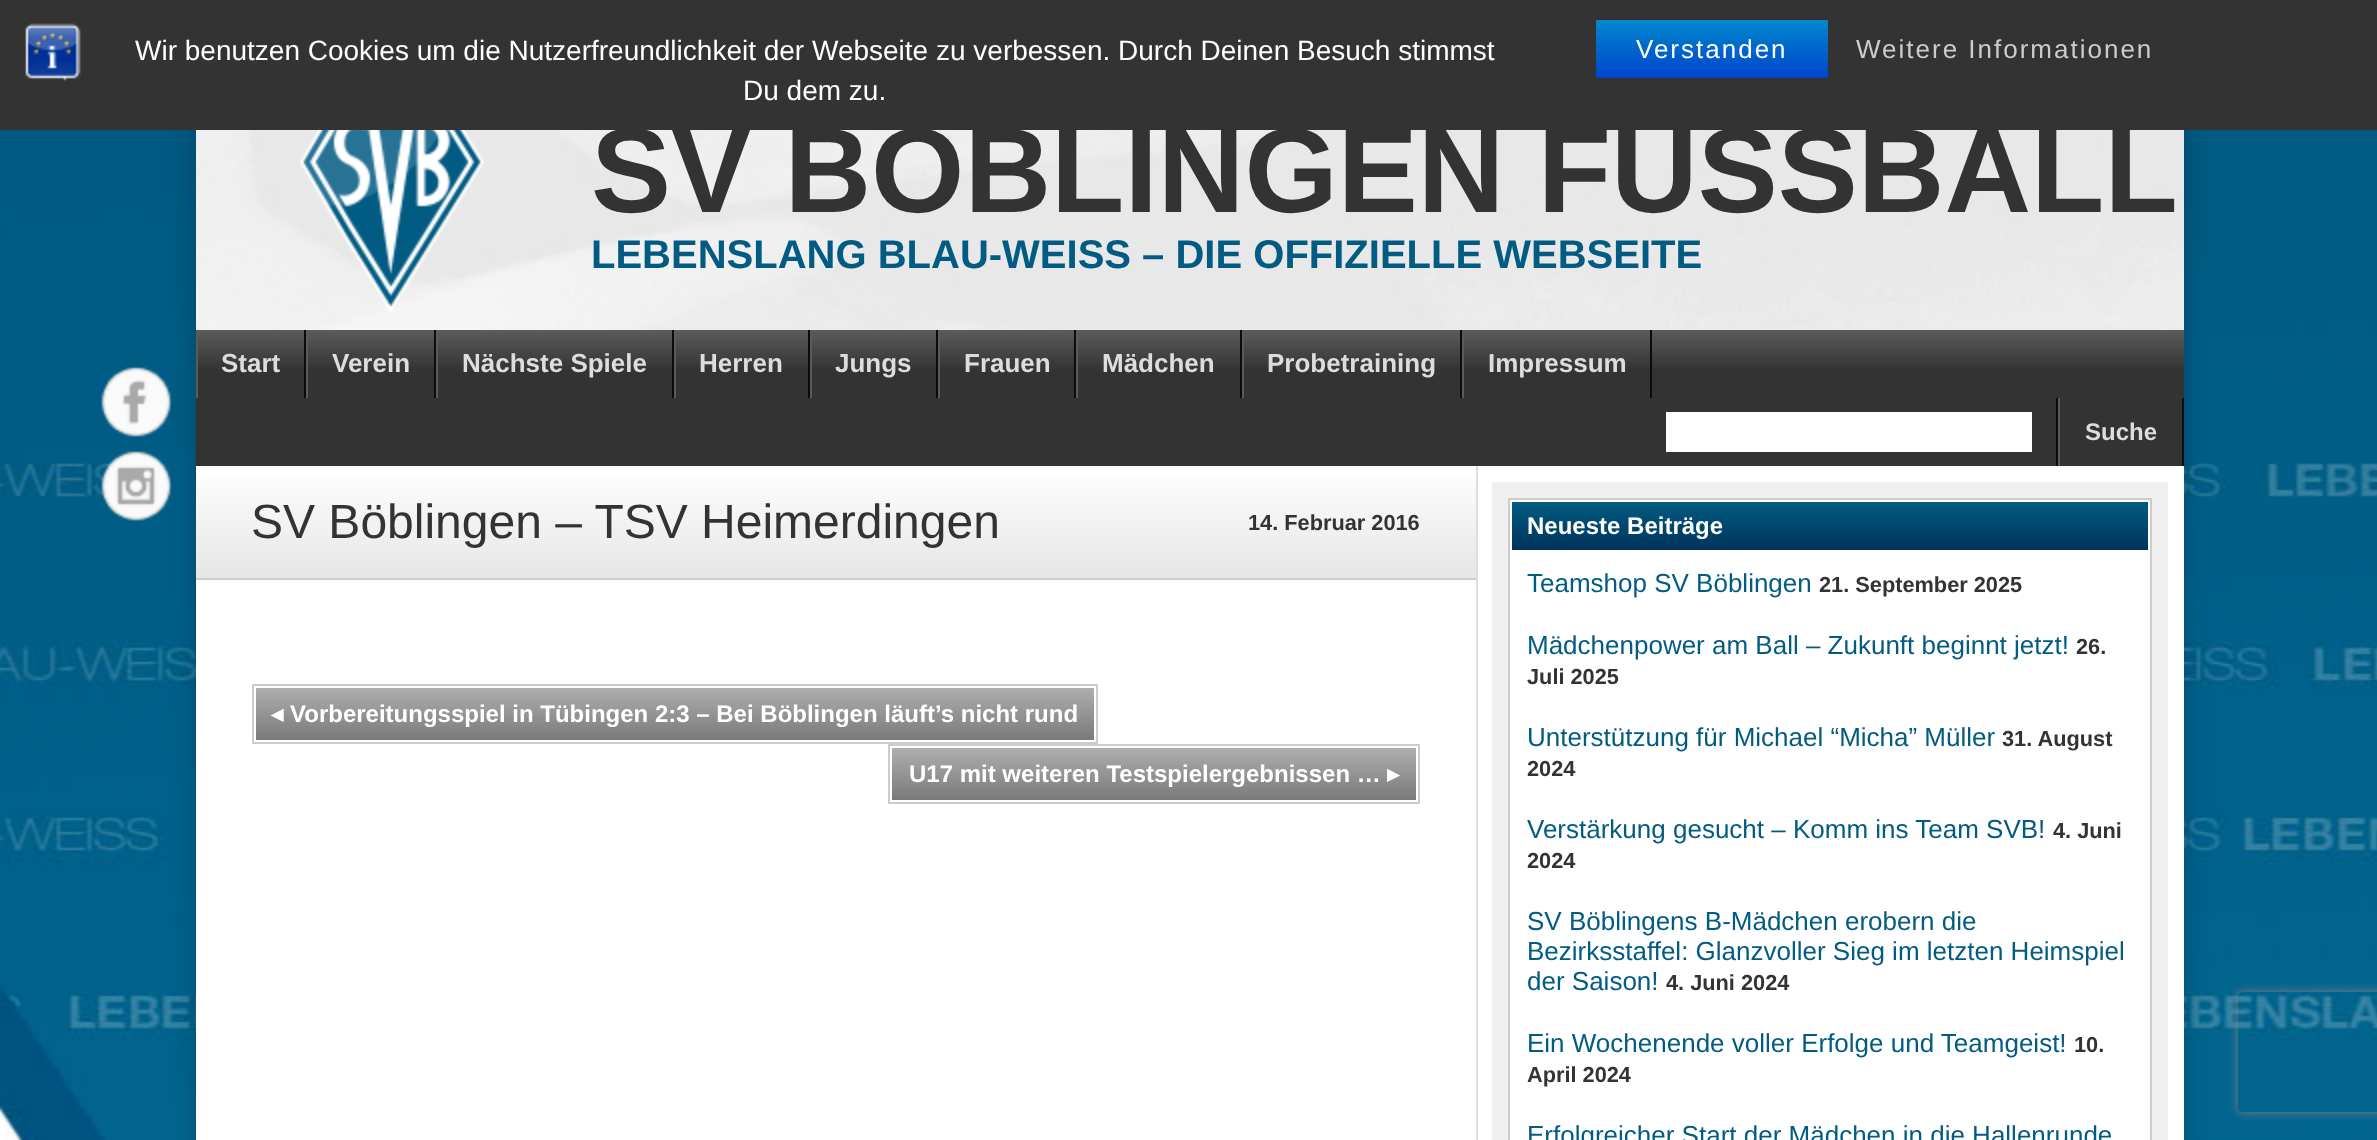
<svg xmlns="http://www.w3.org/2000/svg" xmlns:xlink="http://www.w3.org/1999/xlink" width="2377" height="1140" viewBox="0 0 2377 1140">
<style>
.cls-1{font:28px Liberation Sans;fill:#ffffff}
.cls-2{font:26px Liberation Sans;letter-spacing:2px;fill:#ffffff}
.cls-3{font:26px Liberation Sans;letter-spacing:2px;fill:#cccccc}
.cls-4{font:bold 120px Liberation Sans;fill:#333333}
.cls-5{font:bold 40px Liberation Sans;fill:#025b82}
.cls-6{font:bold 26px Liberation Sans;fill:#dddddd}
.cls-7{font:bold 24px Liberation Sans;fill:#dddddd}
.cls-8{font:48px Liberation Sans;fill:#333333}
.cls-9{font:bold 21.75px Liberation Sans;fill:#333333}
.cls-10{font:bold 24px DejaVu Sans;fill:#ffffff}
.cls-11{font:bold 24px Liberation Sans;fill:#ffffff}
.cls-12{font:26px Liberation Sans;fill:#025b82}
</style>
<defs>
<linearGradient id="g1" gradientUnits="userSpaceOnUse" x1="1712" y1="20" x2="1712" y2="78"><stop offset="0" stop-color="#0088cc"/><stop offset="1" stop-color="#0044cc"/></linearGradient>
<linearGradient id="g2" gradientUnits="userSpaceOnUse" x1="196" y1="330" x2="196" y2="466"><stop offset="0" stop-color="#5b5b5b"/><stop offset="0.3" stop-color="#333333"/></linearGradient>
<linearGradient id="g3" gradientUnits="userSpaceOnUse" x1="196" y1="466" x2="196" y2="578"><stop offset="0" stop-color="#ffffff"/><stop offset="1" stop-color="#e6e6e6"/></linearGradient>
<linearGradient id="g4" gradientUnits="userSpaceOnUse" x1="256" y1="688" x2="256" y2="740"><stop offset="0" stop-color="#aeaeae"/><stop offset="1" stop-color="#7a7a7a"/></linearGradient>
<linearGradient id="g5" gradientUnits="userSpaceOnUse" x1="892" y1="748" x2="892" y2="800"><stop offset="0" stop-color="#aeaeae"/><stop offset="1" stop-color="#7a7a7a"/></linearGradient>
<linearGradient id="g6" gradientUnits="userSpaceOnUse" x1="1512" y1="502" x2="1512" y2="550"><stop offset="0" stop-color="#025b82"/><stop offset="1" stop-color="#00335a"/></linearGradient>
<clipPath id="clip1"><path d="M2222 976H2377V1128H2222ZM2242 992H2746C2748 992 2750 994 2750 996V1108C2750 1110 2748 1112 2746 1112H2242C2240 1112 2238 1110 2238 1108V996C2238 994 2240 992 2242 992Z" clip-rule="evenodd"/></clipPath>
</defs>
<rect width="100%" height="100%" fill="#ffffff"/>
<image xlink:href="image0.png" x="0" y="130" width="2377" height="1010"/>
<rect fill="#000000" fill-opacity="0.2" filter="blur(12px)" x="196" y="48" width="1988" height="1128"/>
<rect fill="#333333" x="0" y="0" width="2377" height="130"/>
<image xlink:href="image1.png" x="25" y="23" width="56" height="58"/>
<rect fill="url(#g1)" x="1596" y="20" width="232" height="58"/>
<image xlink:href="image2.png" x="101" y="367" width="71" height="70"/>
<image xlink:href="image3.png" x="101" y="451" width="71" height="70"/>
<rect fill="#ffffff" x="196" y="466" width="1988" height="674"/>
<image xlink:href="image4.png" x="196" y="130" width="1988" height="200"/>
<image xlink:href="image5.png" x="299" y="130" width="186" height="182"/>
<rect fill="url(#g2)" x="196" y="330" width="1988" height="136"/>
<rect fill="#0b0b0b" x="304" y="330" width="2" height="68"/>
<rect fill="#5b5b5b" x="196" y="330" width="2" height="68"/>
<rect fill="#0b0b0b" x="434" y="330" width="2" height="68"/>
<rect fill="#5b5b5b" x="306" y="330" width="2" height="68"/>
<rect fill="#0b0b0b" x="672" y="330" width="2" height="68"/>
<rect fill="#5b5b5b" x="436" y="330" width="2" height="68"/>
<rect fill="#0b0b0b" x="808" y="330" width="2" height="68"/>
<rect fill="#5b5b5b" x="674" y="330" width="2" height="68"/>
<rect fill="#0b0b0b" x="936" y="330" width="2" height="68"/>
<rect fill="#5b5b5b" x="810" y="330" width="2" height="68"/>
<rect fill="#0b0b0b" x="1074" y="330" width="2" height="68"/>
<rect fill="#5b5b5b" x="938" y="330" width="2" height="68"/>
<rect fill="#0b0b0b" x="1240" y="330" width="2" height="68"/>
<rect fill="#5b5b5b" x="1076" y="330" width="2" height="68"/>
<rect fill="#0b0b0b" x="1460" y="330" width="2" height="68"/>
<rect fill="#5b5b5b" x="1242" y="330" width="2" height="68"/>
<rect fill="#0b0b0b" x="1650" y="330" width="2" height="68"/>
<rect fill="#5b5b5b" x="1462" y="330" width="2" height="68"/>
<rect fill="#0b0b0b" x="2056" y="398" width="2" height="68"/>
<rect fill="#ffffff" x="1666" y="412" width="366" height="40"/>
<rect fill="#0b0b0b" x="2182" y="398" width="2" height="68"/>
<rect fill="#5b5b5b" x="2058" y="398" width="2" height="68"/>
<rect fill="#dfdfdf" x="1476" y="466" width="2" height="674"/>
<rect fill="url(#g3)" x="196" y="477" width="1280" height="101"/>
<rect fill="#cccccc" x="196" y="578" width="1280" height="2"/>
<rect fill="none" stroke="#cccccc" stroke-width="2" x="253" y="685" width="844" height="58"/>
<rect fill="url(#g4)" x="256" y="688" width="838" height="52"/>
<rect fill="none" stroke="#cccccc" stroke-width="2" x="889" y="745" width="530" height="58"/>
<rect fill="url(#g5)" x="892" y="748" width="524" height="52"/>
<rect fill="#f0f0f0" x="1492" y="482" width="676" height="658"/>
<rect fill="#ffffff" stroke="#cccccc" stroke-width="2" x="1509" y="499" width="642" height="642"/>
<rect fill="url(#g6)" x="1512" y="502" width="636" height="48"/>
<g clip-path="url(#clip1)">
<rect fill="#808080" filter="blur(5px)" x="2238" y="992" width="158" height="120" rx="4"/>
</g>
<text class="cls-1" x="135" y="60">Wir benutzen Cookies um die Nutzerfreundlichkeit der Webseite zu verbessen. Durch Deinen Besuch stimmst</text>
<text class="cls-1" x="743" y="100">Du dem zu.</text>
<text class="cls-2" x="1636" y="58">Verstanden</text>
<text class="cls-3" x="1856" y="58">Weitere Informationen</text>
<text class="cls-4" x="591" y="212">SV BÖBLINGEN FUSSBALL</text>
<text class="cls-5" x="591" y="268">LEBENSLANG BLAU-WEISS – DIE OFFIZIELLE WEBSEITE</text>
<text class="cls-6" x="221" y="372">Start</text>
<text class="cls-6" x="332" y="372">Verein</text>
<text class="cls-6" x="462" y="372">Nächste Spiele</text>
<text class="cls-6" x="699" y="372">Herren</text>
<text class="cls-6" x="835" y="372">Jungs</text>
<text class="cls-6" x="964" y="372">Frauen</text>
<text class="cls-6" x="1102" y="372">Mädchen</text>
<text class="cls-6" x="1267" y="372">Probetraining</text>
<text class="cls-6" x="1488" y="372">Impressum</text>
<text class="cls-7" x="2085" y="440">Suche</text>
<text class="cls-8" x="251" y="538">SV Böblingen – TSV Heimerdingen</text>
<text class="cls-9" x="1248" y="530">14. Februar 2016</text>
<text class="cls-10" x="271" y="722">◂</text>
<text class="cls-11" x="290" y="722">Vorbereitungsspiel in Tübingen 2:3 – Bei Böblingen läuft’s nicht rund</text>
<text class="cls-11" x="909" y="782">U17 mit weiteren Testspielergebnissen …</text>
<text class="cls-10" x="1387" y="782">▸</text>
<text class="cls-11" x="1527" y="534">Neueste Beiträge</text>
<text class="cls-12" x="1527" y="592">Teamshop SV Böblingen</text>
<text class="cls-9" x="1819" y="592">21. September 2025</text>
<text class="cls-12" x="1527" y="654">Mädchenpower am Ball – Zukunft beginnt jetzt!</text>
<text class="cls-9" x="2076" y="654">26.</text>
<text class="cls-9" x="1527" y="684">Juli 2025</text>
<text class="cls-12" x="1527" y="746">Unterstützung für Michael “Micha” Müller</text>
<text class="cls-9" x="2002" y="746">31. August</text>
<text class="cls-9" x="1527" y="776">2024</text>
<text class="cls-12" x="1527" y="838">Verstärkung gesucht – Komm ins Team SVB!</text>
<text class="cls-9" x="2053" y="838">4. Juni</text>
<text class="cls-9" x="1527" y="868">2024</text>
<text class="cls-12"><tspan x="1527" y="930">SV Böblingens B-Mädchen erobern die</tspan><tspan x="1527" y="960">Bezirksstaffel: Glanzvoller Sieg im letzten Heimspiel</tspan><tspan x="1527" y="990">der Saison!</tspan></text>
<text class="cls-9" x="1666" y="990">4. Juni 2024</text>
<text class="cls-12" x="1527" y="1052">Ein Wochenende voller Erfolge und Teamgeist!</text>
<text class="cls-9" x="2074" y="1052">10.</text>
<text class="cls-9" x="1527" y="1082">April 2024</text>
<text class="cls-12" x="1527" y="1144">Erfolgreicher Start der Mädchen in die Hallenrunde</text>
</svg>
